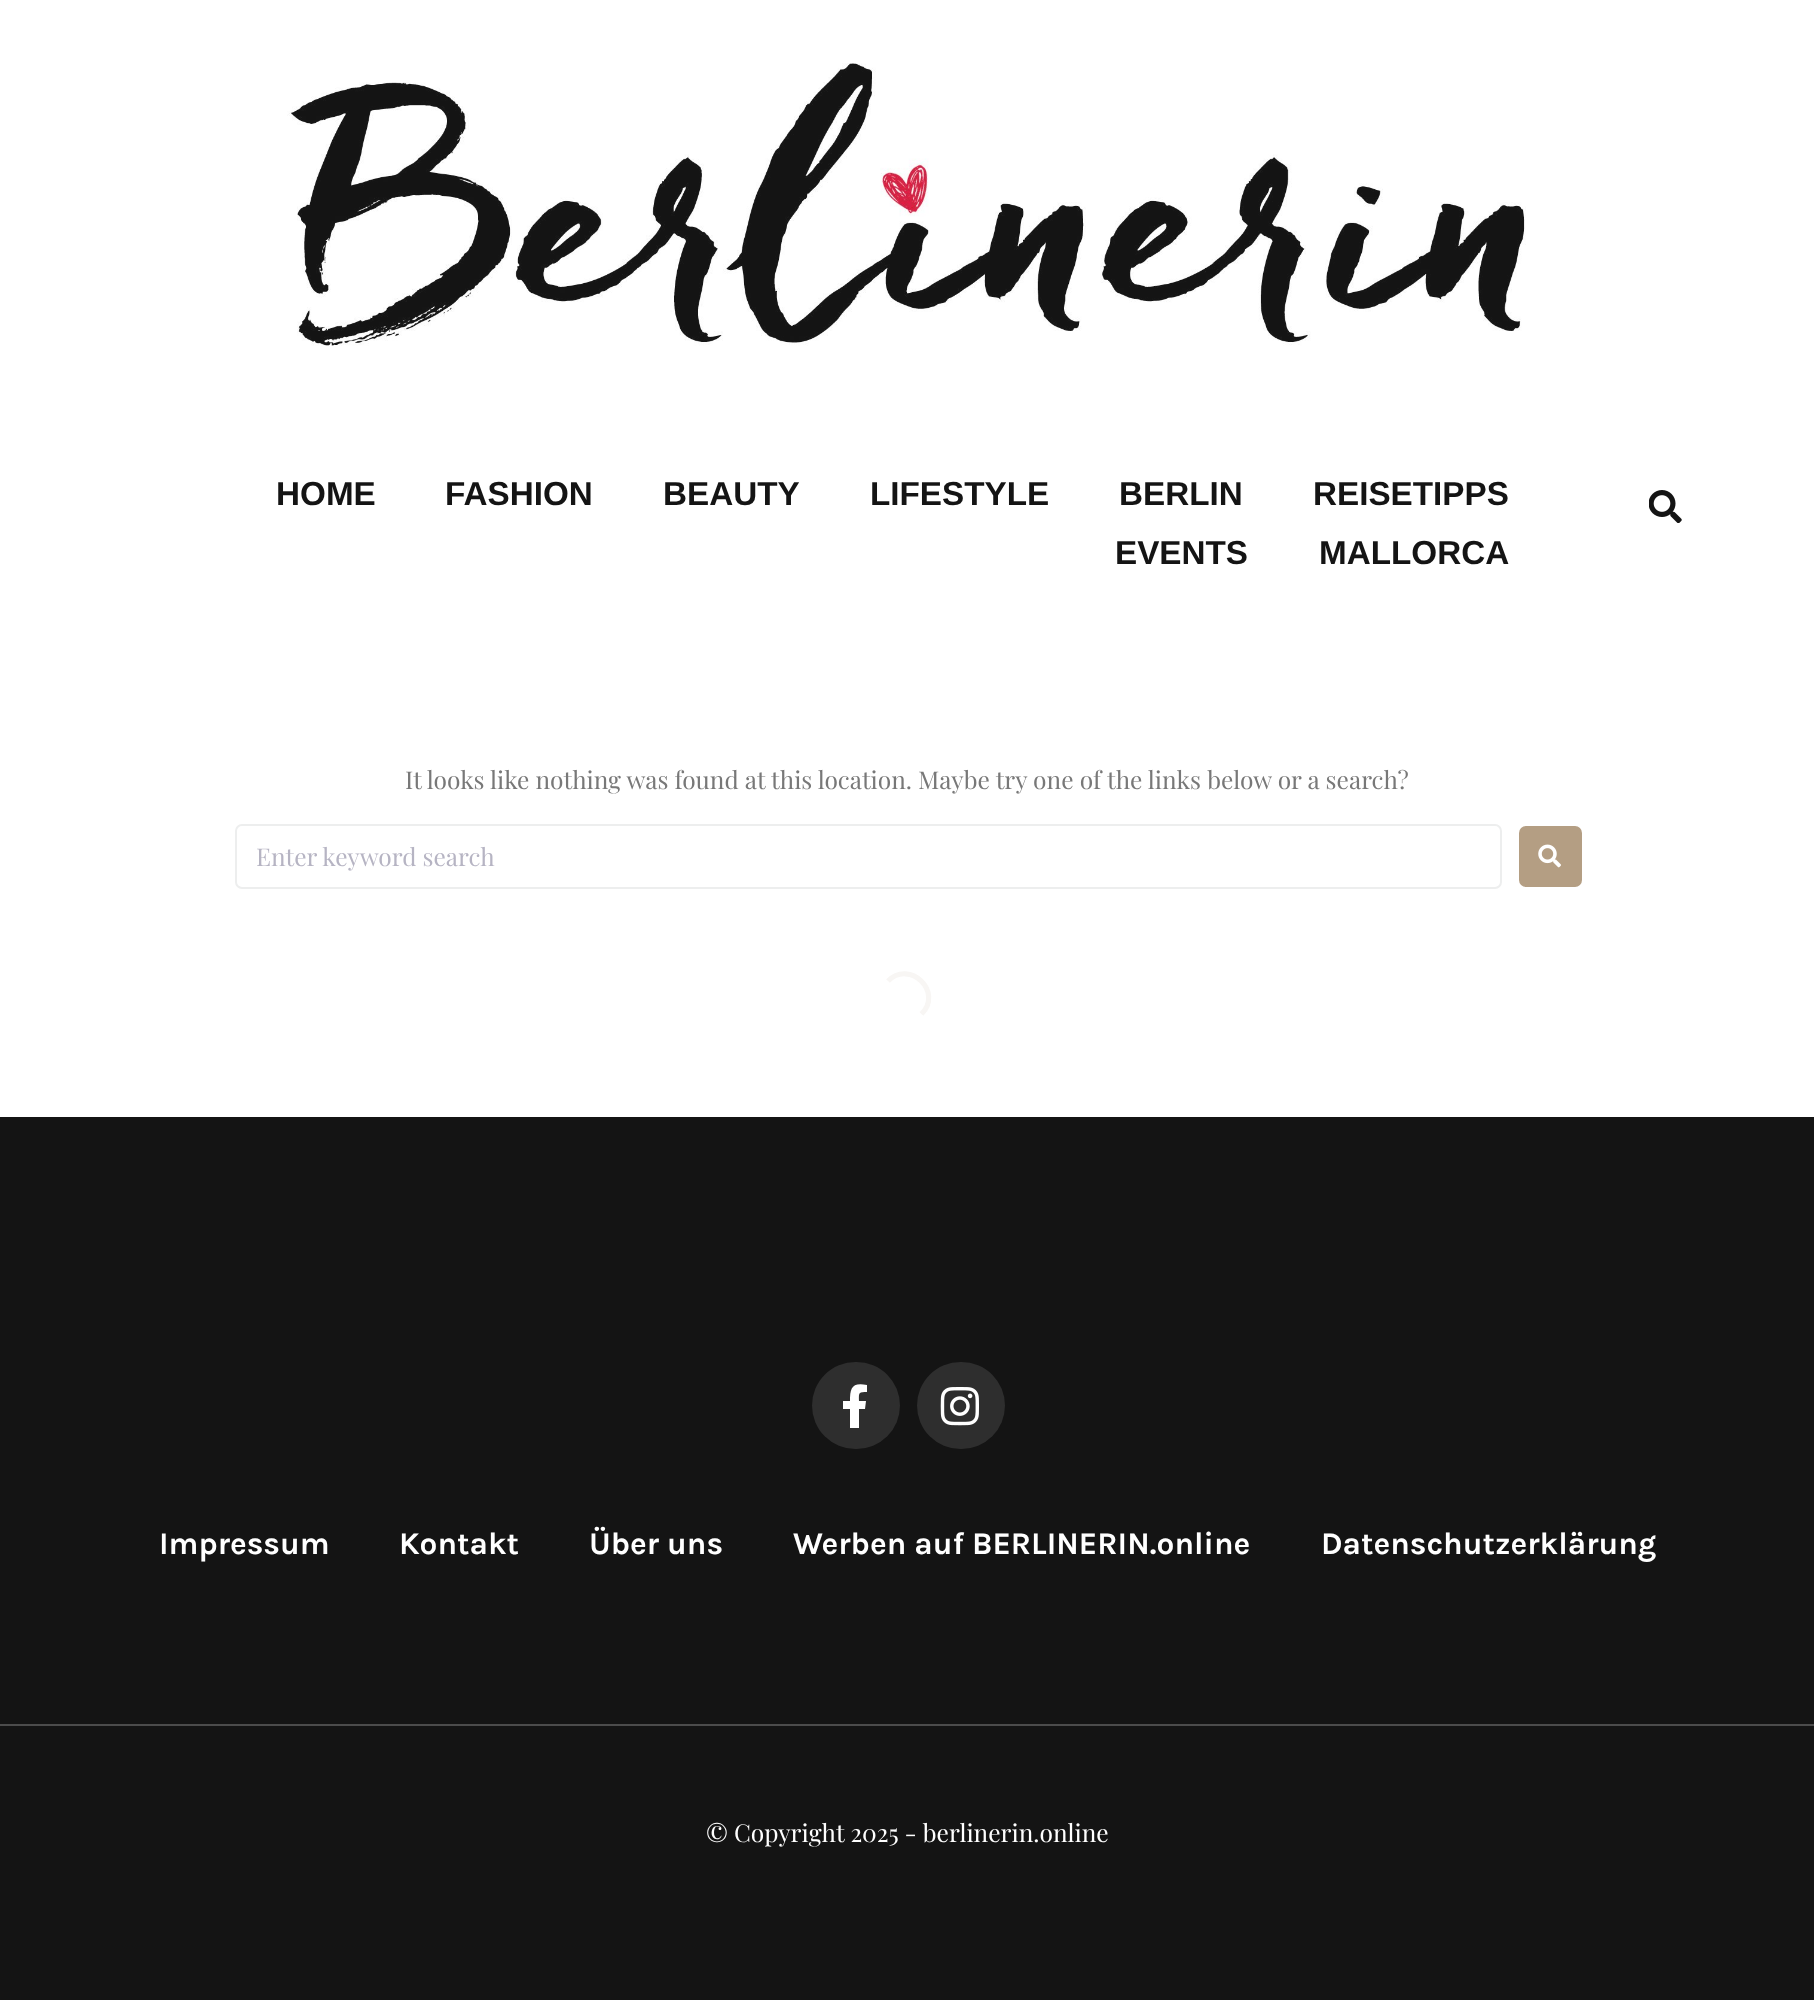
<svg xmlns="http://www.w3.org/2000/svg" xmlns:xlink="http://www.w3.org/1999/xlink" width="1814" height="2000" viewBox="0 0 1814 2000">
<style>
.cls-1{font:bold 33.25px Liberation Sans;fill:#141414}
.cls-2{font:24.5px Playfair Display;fill:#787878}
.cls-3{font:24.5px Playfair Display;fill:#b6b4c3}
.cls-4{font:bold 31.5px Karla;fill:#ffffff}
.cls-5{font:24.5px Playfair Display;fill:#ffffff}
</style>
<rect width="100%" height="100%" fill="#ffffff"/>
<image xlink:href="image0.png" x="287" y="63" width="1239" height="283"/>
<image xlink:href="image1.png" x="1649" y="490" width="33" height="33"/>
<rect fill="none" stroke="#edeeee" stroke-width="2" x="236" y="825" width="1265" height="63" rx="6"/>
<rect fill="#b49e83" x="1519" y="826" width="63" height="61" rx="7"/>
<image xlink:href="image2.png" x="1538" y="844" width="23" height="24"/>
<rect fill="#141414" x="0" y="1117" width="1814" height="883"/>
<rect fill="#2e2e2e" x="812" y="1362" width="88" height="87" rx="43.5"/>
<path fill="#ffffff" d="M865 1409L866 1401H859C859 1393 858 1392 867 1392V1385C852 1382 850 1388 850 1401H843V1409H850V1428H859V1409Z"/>
<rect fill="#2e2e2e" x="917" y="1362" width="88" height="87" rx="43.5"/>
<image xlink:href="image3.png" x="940" y="1387" width="39" height="39"/>
<rect fill="#4c4c4c" x="0" y="1724" width="1814" height="2"/>
<path fill="none" stroke="#f8f6f4" stroke-width="5.2" d="M888 981C910 959 943.5 992 921.5 1014"/>
<text class="cls-1" x="276" y="505">HOME</text>
<text class="cls-1" x="445" y="505">FASHION</text>
<text class="cls-1" x="663" y="505">BEAUTY</text>
<text class="cls-1" x="870" y="505">LIFESTYLE</text>
<text class="cls-1" x="1119" y="505">BERLIN</text>
<text class="cls-1" x="1313" y="505">REISETIPPS</text>
<text class="cls-1" x="1115" y="564">EVENTS</text>
<text class="cls-1" x="1319" y="564">MALLORCA</text>
<text class="cls-2" x="405" y="789">It looks like nothing was found at this location. Maybe try one of the links below or a search?</text>
<text class="cls-3" x="256" y="866">Enter keyword search</text>
<text class="cls-4" x="159" y="1554">Impressum</text>
<text class="cls-4" x="399" y="1554">Kontakt</text>
<text class="cls-4" x="589" y="1554">Über uns</text>
<text class="cls-4" x="793" y="1554">Werben auf BERLINERIN.online</text>
<text class="cls-4" x="1321" y="1554">Datenschutzerklärung</text>
<text class="cls-5" x="706" y="1842">© Copyright 2025 - berlinerin.online</text>
</svg>
